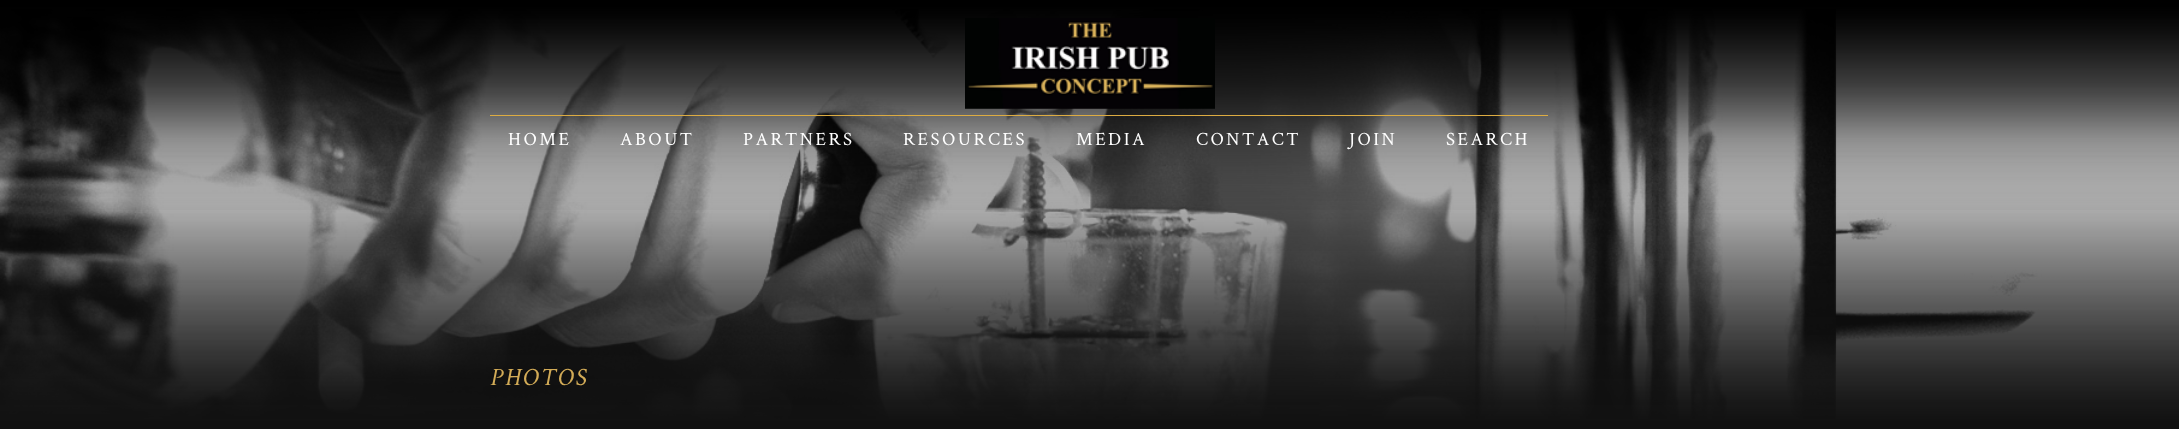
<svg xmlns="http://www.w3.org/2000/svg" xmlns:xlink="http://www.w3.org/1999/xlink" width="2179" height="429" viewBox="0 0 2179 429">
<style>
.cls-1{font:18.75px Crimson;letter-spacing:2.5px;fill:#ffffff}
.cls-2{font:italic 25px Crimson;letter-spacing:2.5px;fill:#d2ab57}
</style>
<rect width="100%" height="100%" fill="#ffffff"/>
<image xlink:href="image0.png" x="0" y="9" width="2179" height="410"/>
<image xlink:href="image1.png" x="0" y="92" width="2179" height="337"/>
<image xlink:href="image2.png" x="0" y="0" width="2179" height="210"/>
<image xlink:href="image3.png" x="965" y="18" width="250" height="91"/>
<rect fill="#ddac42" x="490" y="115" width="1058" height="1"/>
<text class="cls-1" x="508" y="145">HOME</text>
<text class="cls-1" x="620" y="145">ABOUT</text>
<text class="cls-1" x="743" y="145">PARTNERS</text>
<text class="cls-1" x="903" y="145">RESOURCES</text>
<text class="cls-1" x="1076" y="145">MEDIA</text>
<text class="cls-1" x="1196" y="145">CONTACT</text>
<text class="cls-1" x="1349" y="145">JOIN</text>
<text class="cls-1" x="1446" y="145">SEARCH</text>
<text class="cls-2" x="490" y="385">PHOTOS</text>
</svg>
